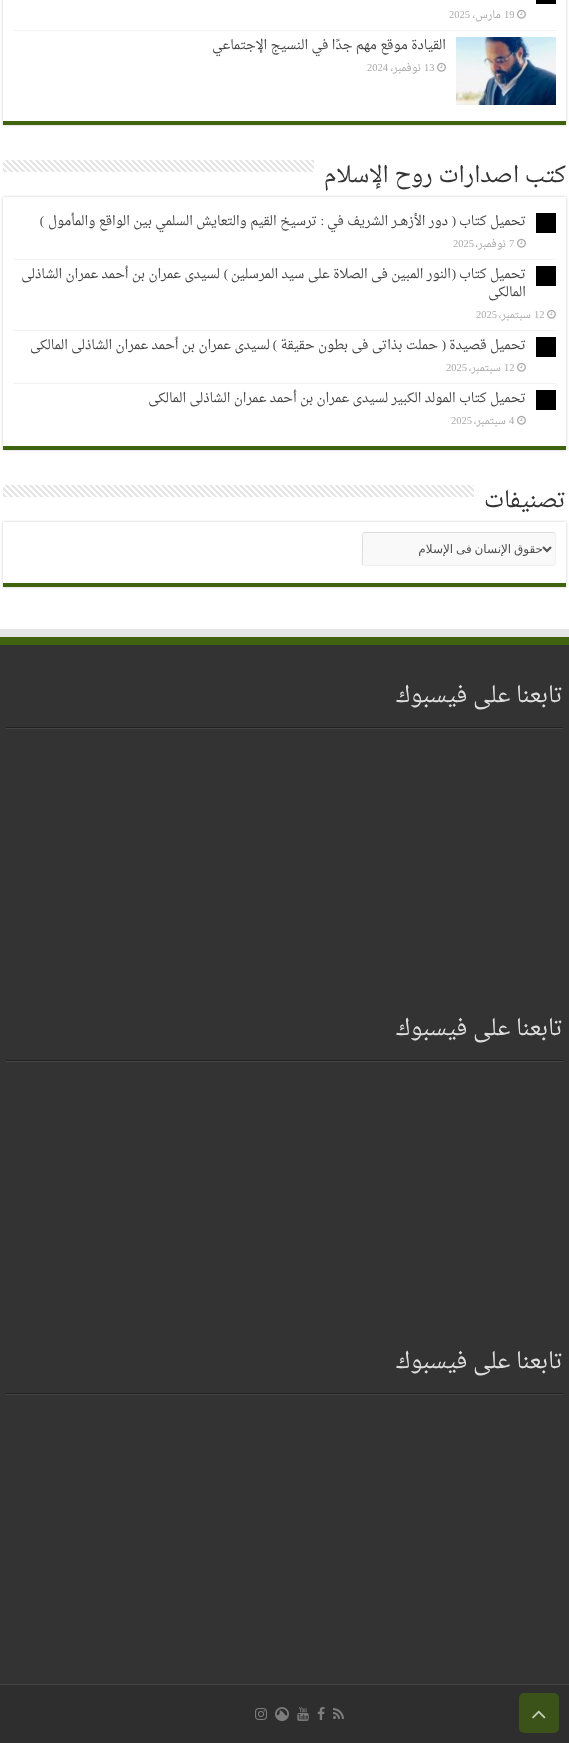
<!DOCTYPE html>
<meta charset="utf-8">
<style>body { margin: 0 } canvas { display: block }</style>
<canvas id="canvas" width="569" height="1743"></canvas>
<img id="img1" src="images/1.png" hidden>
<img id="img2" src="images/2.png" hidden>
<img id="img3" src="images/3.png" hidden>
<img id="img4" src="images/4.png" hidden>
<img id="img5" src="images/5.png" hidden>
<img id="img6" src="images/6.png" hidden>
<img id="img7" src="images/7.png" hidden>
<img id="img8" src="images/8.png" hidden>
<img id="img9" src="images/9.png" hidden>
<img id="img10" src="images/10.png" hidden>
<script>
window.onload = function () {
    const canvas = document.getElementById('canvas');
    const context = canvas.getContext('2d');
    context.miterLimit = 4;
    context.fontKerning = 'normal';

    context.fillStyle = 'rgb(255, 255, 255)';
    context.fillRect(0, 0, 569, 1743);
    context.save();
    context.beginPath();
    context.moveTo(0, 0);
    context.lineTo(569, 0);
    context.lineTo(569, 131);
    context.lineTo(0, 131);
    context.closePath();
    context.moveTo(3, -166);
    context.lineTo(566, -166);
    context.lineTo(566, 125);
    context.lineTo(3, 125);
    context.closePath();
    context.clip('evenodd');
    context.fillStyle = 'rgb(202, 202, 202)';
    context.filter = 'blur(1.5px)';
    context.beginPath();
    context.rect(3, -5, 563, 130);
    context.fill();
    context.filter = 'none';
    context.restore();
    context.fillStyle = 'rgb(64, 99, 16)';
    context.fillRect(3, 121, 563, 4);
    context.fillStyle = 'rgb(242, 242, 242)';
    context.fillRect(13, 30, 543, 1);
    context.fillStyle = 'rgb(0, 0, 0)';
    context.fillRect(536, 0, 20, 4);
    context.drawImage(document.getElementById('img1'), 517, 9, 9, 10);
    context.drawImage(document.getElementById('img2'), 456, 37, 100, 68);
    context.drawImage(document.getElementById('img1'), 437, 62, 9, 10);
    context.drawImage(document.getElementById('img3'), 3, 160, 311, 12);
    context.save();
    context.beginPath();
    context.moveTo(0, 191);
    context.lineTo(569, 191);
    context.lineTo(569, 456);
    context.lineTo(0, 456);
    context.closePath();
    context.moveTo(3, 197);
    context.lineTo(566, 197);
    context.lineTo(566, 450);
    context.lineTo(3, 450);
    context.closePath();
    context.clip('evenodd');
    context.fillStyle = 'rgb(202, 202, 202)';
    context.filter = 'blur(1.5px)';
    context.beginPath();
    context.rect(3, 197, 563, 253);
    context.fill();
    context.filter = 'none';
    context.restore();
    context.fillStyle = 'rgb(64, 99, 16)';
    context.fillRect(3, 446, 563, 4);
    context.fillStyle = 'rgb(242, 242, 242)';
    context.fillRect(13, 259, 543, 1);
    context.fillStyle = 'rgb(0, 0, 0)';
    context.fillRect(536, 213, 20, 20);
    context.drawImage(document.getElementById('img1'), 517, 238, 9, 10);
    context.fillStyle = 'rgb(242, 242, 242)';
    context.fillRect(13, 330, 543, 1);
    context.fillStyle = 'rgb(0, 0, 0)';
    context.fillRect(536, 266, 20, 20);
    context.drawImage(document.getElementById('img1'), 547, 309, 9, 10);
    context.fillStyle = 'rgb(242, 242, 242)';
    context.fillRect(13, 383, 543, 1);
    context.fillStyle = 'rgb(0, 0, 0)';
    context.fillRect(536, 337, 20, 20);
    context.drawImage(document.getElementById('img1'), 517, 362, 9, 10);
    context.fillRect(536, 390, 20, 20);
    context.drawImage(document.getElementById('img1'), 517, 415, 9, 10);
    context.drawImage(document.getElementById('img4'), 3, 485, 471, 12);
    context.save();
    context.beginPath();
    context.moveTo(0, 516);
    context.lineTo(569, 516);
    context.lineTo(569, 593);
    context.lineTo(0, 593);
    context.closePath();
    context.moveTo(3, 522);
    context.lineTo(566, 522);
    context.lineTo(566, 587);
    context.lineTo(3, 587);
    context.closePath();
    context.clip('evenodd');
    context.fillStyle = 'rgb(202, 202, 202)';
    context.filter = 'blur(1.5px)';
    context.beginPath();
    context.rect(3, 522, 563, 65);
    context.fill();
    context.filter = 'none';
    context.restore();
    context.fillStyle = 'rgb(64, 99, 16)';
    context.fillRect(3, 583, 563, 4);
    context.fillStyle = 'rgb(249, 249, 249)';
    context.beginPath();
    context.roundRect(362, 532, 194, 34, 3);
    context.fill();
    context.beginPath();
    context.moveTo(555, 533);
    context.bezierCurveTo(556.5, 535, 555.5, 542, 555.5, 544.5);
    context.lineTo(555.5, 558.5);
    context.bezierCurveTo(555.5, 560, 556.5, 565.5, 553, 565.5);
    context.lineTo(364.5, 565.5);
    context.lineTo(363, 565);
    context.strokeStyle = 'rgb(241, 241, 241)';
    context.stroke();
    context.beginPath();
    context.moveTo(363, 565);
    context.bezierCurveTo(361.5, 563, 362.5, 556, 362.5, 553.5);
    context.lineTo(362.5, 539.5);
    context.bezierCurveTo(362.5, 538, 361.5, 532.5, 365, 532.5);
    context.lineTo(553.5, 532.5);
    context.lineTo(555, 533);
    context.strokeStyle = 'rgb(221, 221, 221)';
    context.stroke();
    context.beginPath();
    context.moveTo(543, 547);
    context.lineTo(547, 551);
    context.lineTo(551, 547);
    context.strokeStyle = 'rgb(81, 81, 81)';
    context.lineWidth = 2;
    context.stroke();
    context.fillStyle = 'rgb(230, 230, 230)';
    context.fillRect(0, 629, 569, 8);
    context.fillStyle = 'rgb(51, 51, 51)';
    context.fillRect(0, 645, 569, 1039);
    context.fillStyle = 'rgb(64, 99, 16)';
    context.fillRect(0, 637, 569, 8);
    context.fillStyle = 'rgb(34, 34, 34)';
    context.fillRect(6, 727, 557, 1);
    context.fillStyle = 'rgb(68, 68, 68)';
    context.fillRect(6, 728, 557, 1);
    context.fillStyle = 'rgb(34, 34, 34)';
    context.fillRect(6, 1060, 557, 1);
    context.fillStyle = 'rgb(68, 68, 68)';
    context.fillRect(6, 1061, 557, 1);
    context.fillStyle = 'rgb(34, 34, 34)';
    context.fillRect(6, 1393, 557, 1);
    context.fillStyle = 'rgb(68, 68, 68)';
    context.fillRect(6, 1394, 557, 1);
    context.fillStyle = 'rgb(46, 46, 46)';
    context.fillRect(0, 1685, 569, 58);
    context.fillStyle = 'rgb(68, 68, 68)';
    context.fillRect(0, 1684, 569, 1);
    context.drawImage(document.getElementById('img5'), 333, 1708, 11, 11);
    context.drawImage(document.getElementById('img6'), 317, 1707, 8, 13);
    context.drawImage(document.getElementById('img7'), 297, 1707, 12, 14);
    context.drawImage(document.getElementById('img8'), 275, 1707, 14, 14);
    context.drawImage(document.getElementById('img9'), 255, 1708, 12, 12);
    context.fillStyle = 'rgb(59, 83, 25)';
    context.beginPath();
    context.roundRect(519, 1693, 40, 40, 5);
    context.fill();
    context.drawImage(document.getElementById('img10'), 532, 1710, 14, 9);
    context.font = '10.5px Liberation Serif';
    context.fillStyle = 'rgb(170, 170, 170)';
    context.fillText('19', 504, 18);
    context.direction = 'rtl';
    context.font = '10.5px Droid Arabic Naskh';
    context.fillText('مارس،', 501, 18);
    context.direction = 'ltr';
    context.font = '10.5px Liberation Serif';
    context.fillText('2025', 449, 18);
    context.direction = 'rtl';
    context.font = '13px Droid Arabic Naskh';
    context.fillStyle = 'rgb(68, 68, 68)';
    context.fillText('القيادة موقع مهم جدًا في النسيج الإجتماعي', 446, 49);
    context.direction = 'ltr';
    context.font = '10.5px Liberation Serif';
    context.fillStyle = 'rgb(170, 170, 170)';
    context.fillText('13', 424, 71);
    context.direction = 'rtl';
    context.font = '10.5px Droid Arabic Naskh';
    context.fillText('نوفمبر،', 421, 71);
    context.direction = 'ltr';
    context.font = '10.5px Liberation Serif';
    context.fillText('2024', 367, 71);
    context.direction = 'rtl';
    context.font = '22px Droid Arabic Naskh';
    context.fillStyle = 'rgb(51, 51, 51)';
    context.fillText('كتب اصدارات روح الإسلام', 566, 182);
    context.font = '13px Droid Arabic Naskh';
    context.fillStyle = 'rgb(68, 68, 68)';
    context.fillText('تحميل كتاب', 526, 225);
    context.font = '13px Liberation Serif';
    context.fillText('(', 456, 225);
    context.font = '13px Droid Arabic Naskh';
    context.fillText('دور الأزهــر الشريف في', 448, 225);
    context.font = '13px Liberation Serif';
    context.fillText(':', 324, 225);
    context.font = '13px Droid Arabic Naskh';
    context.fillText('ترسيخ القيم والتعايش السلمي بين الواقع والمأمول', 317, 225);
    context.font = '13px Liberation Serif';
    context.fillText(')', 44, 225);
    context.direction = 'ltr';
    context.font = '10.5px Liberation Serif';
    context.fillStyle = 'rgb(170, 170, 170)';
    context.fillText('7', 509, 247);
    context.direction = 'rtl';
    context.font = '10.5px Droid Arabic Naskh';
    context.fillText('نوفمبر،', 506, 247);
    context.direction = 'ltr';
    context.font = '10.5px Liberation Serif';
    context.fillText('2025', 453, 247);
    context.direction = 'rtl';
    context.font = '13px Droid Arabic Naskh';
    context.fillStyle = 'rgb(68, 68, 68)';
    context.fillText('تحميل كتاب', 526, 278);
    context.font = '13px Liberation Serif';
    context.fillText('(', 456, 278);
    context.font = '13px Droid Arabic Naskh';
    context.fillText('النور المبين فى الصلاة على سيد المرسلين', 451, 278);
    context.font = '13px Liberation Serif';
    context.fillText(')', 228, 278);
    context.font = '13px Droid Arabic Naskh';
    context.fillText('لسيدى عمران بن أحمد عمران الشاذلى', 220, 278);
    context.fillText('المالكى', 526, 296);
    context.direction = 'ltr';
    context.font = '10.5px Liberation Serif';
    context.fillStyle = 'rgb(170, 170, 170)';
    context.fillText('12', 534, 318);
    context.direction = 'rtl';
    context.font = '10.5px Droid Arabic Naskh';
    context.fillText('سبتمبر،', 531, 318);
    context.direction = 'ltr';
    context.font = '10.5px Liberation Serif';
    context.fillText('2025', 476, 318);
    context.direction = 'rtl';
    context.font = '13px Droid Arabic Naskh';
    context.fillStyle = 'rgb(68, 68, 68)';
    context.fillText('تحميل قصيدة', 526, 349);
    context.font = '13px Liberation Serif';
    context.fillText('(', 446, 349);
    context.font = '13px Droid Arabic Naskh';
    context.fillText('حملت بذاتى فى بطون حقيقة', 438, 349);
    context.font = '13px Liberation Serif';
    context.fillText(')', 277, 349);
    context.font = '13px Droid Arabic Naskh';
    context.fillText('لسيدى عمران بن أحمد عمران الشاذلى المالكى', 270, 349);
    context.direction = 'ltr';
    context.font = '10.5px Liberation Serif';
    context.fillStyle = 'rgb(170, 170, 170)';
    context.fillText('12', 504, 371);
    context.direction = 'rtl';
    context.font = '10.5px Droid Arabic Naskh';
    context.fillText('سبتمبر،', 501, 371);
    context.direction = 'ltr';
    context.font = '10.5px Liberation Serif';
    context.fillText('2025', 446, 371);
    context.direction = 'rtl';
    context.font = '13px Droid Arabic Naskh';
    context.fillStyle = 'rgb(68, 68, 68)';
    context.fillText('تحميل كتاب المولد الكبير لسيدى عمران بن أحمد عمران الشاذلى المالكى', 526, 402);
    context.direction = 'ltr';
    context.font = '10.5px Liberation Serif';
    context.fillStyle = 'rgb(170, 170, 170)';
    context.fillText('4', 509, 424);
    context.direction = 'rtl';
    context.font = '10.5px Droid Arabic Naskh';
    context.fillText('سبتمبر،', 506, 424);
    context.direction = 'ltr';
    context.font = '10.5px Liberation Serif';
    context.fillText('2025', 451, 424);
    context.direction = 'rtl';
    context.font = '22px Droid Arabic Naskh';
    context.fillStyle = 'rgb(51, 51, 51)';
    context.fillText('تصنيفات', 566, 507);
    context.save();
    context.beginPath();
    context.rect(387, 541, 156, 16);
    context.clip();
    context.wordSpacing = '-1px';
    context.font = '12px DejaVu Sans';
    context.fillStyle = 'rgb(81, 81, 81)';
    context.fillText('حقوق الإنسان فى الإسلام', 543, 553);
    context.restore();
    context.fillStyle = 'rgb(221, 221, 221)';
    context.fillText('تابعنا على فيسبوك', 563, 702);
    context.fillText('تابعنا على فيسبوك', 563, 1035);
    context.fillText('تابعنا على فيسبوك', 563, 1368);
};
</script>
